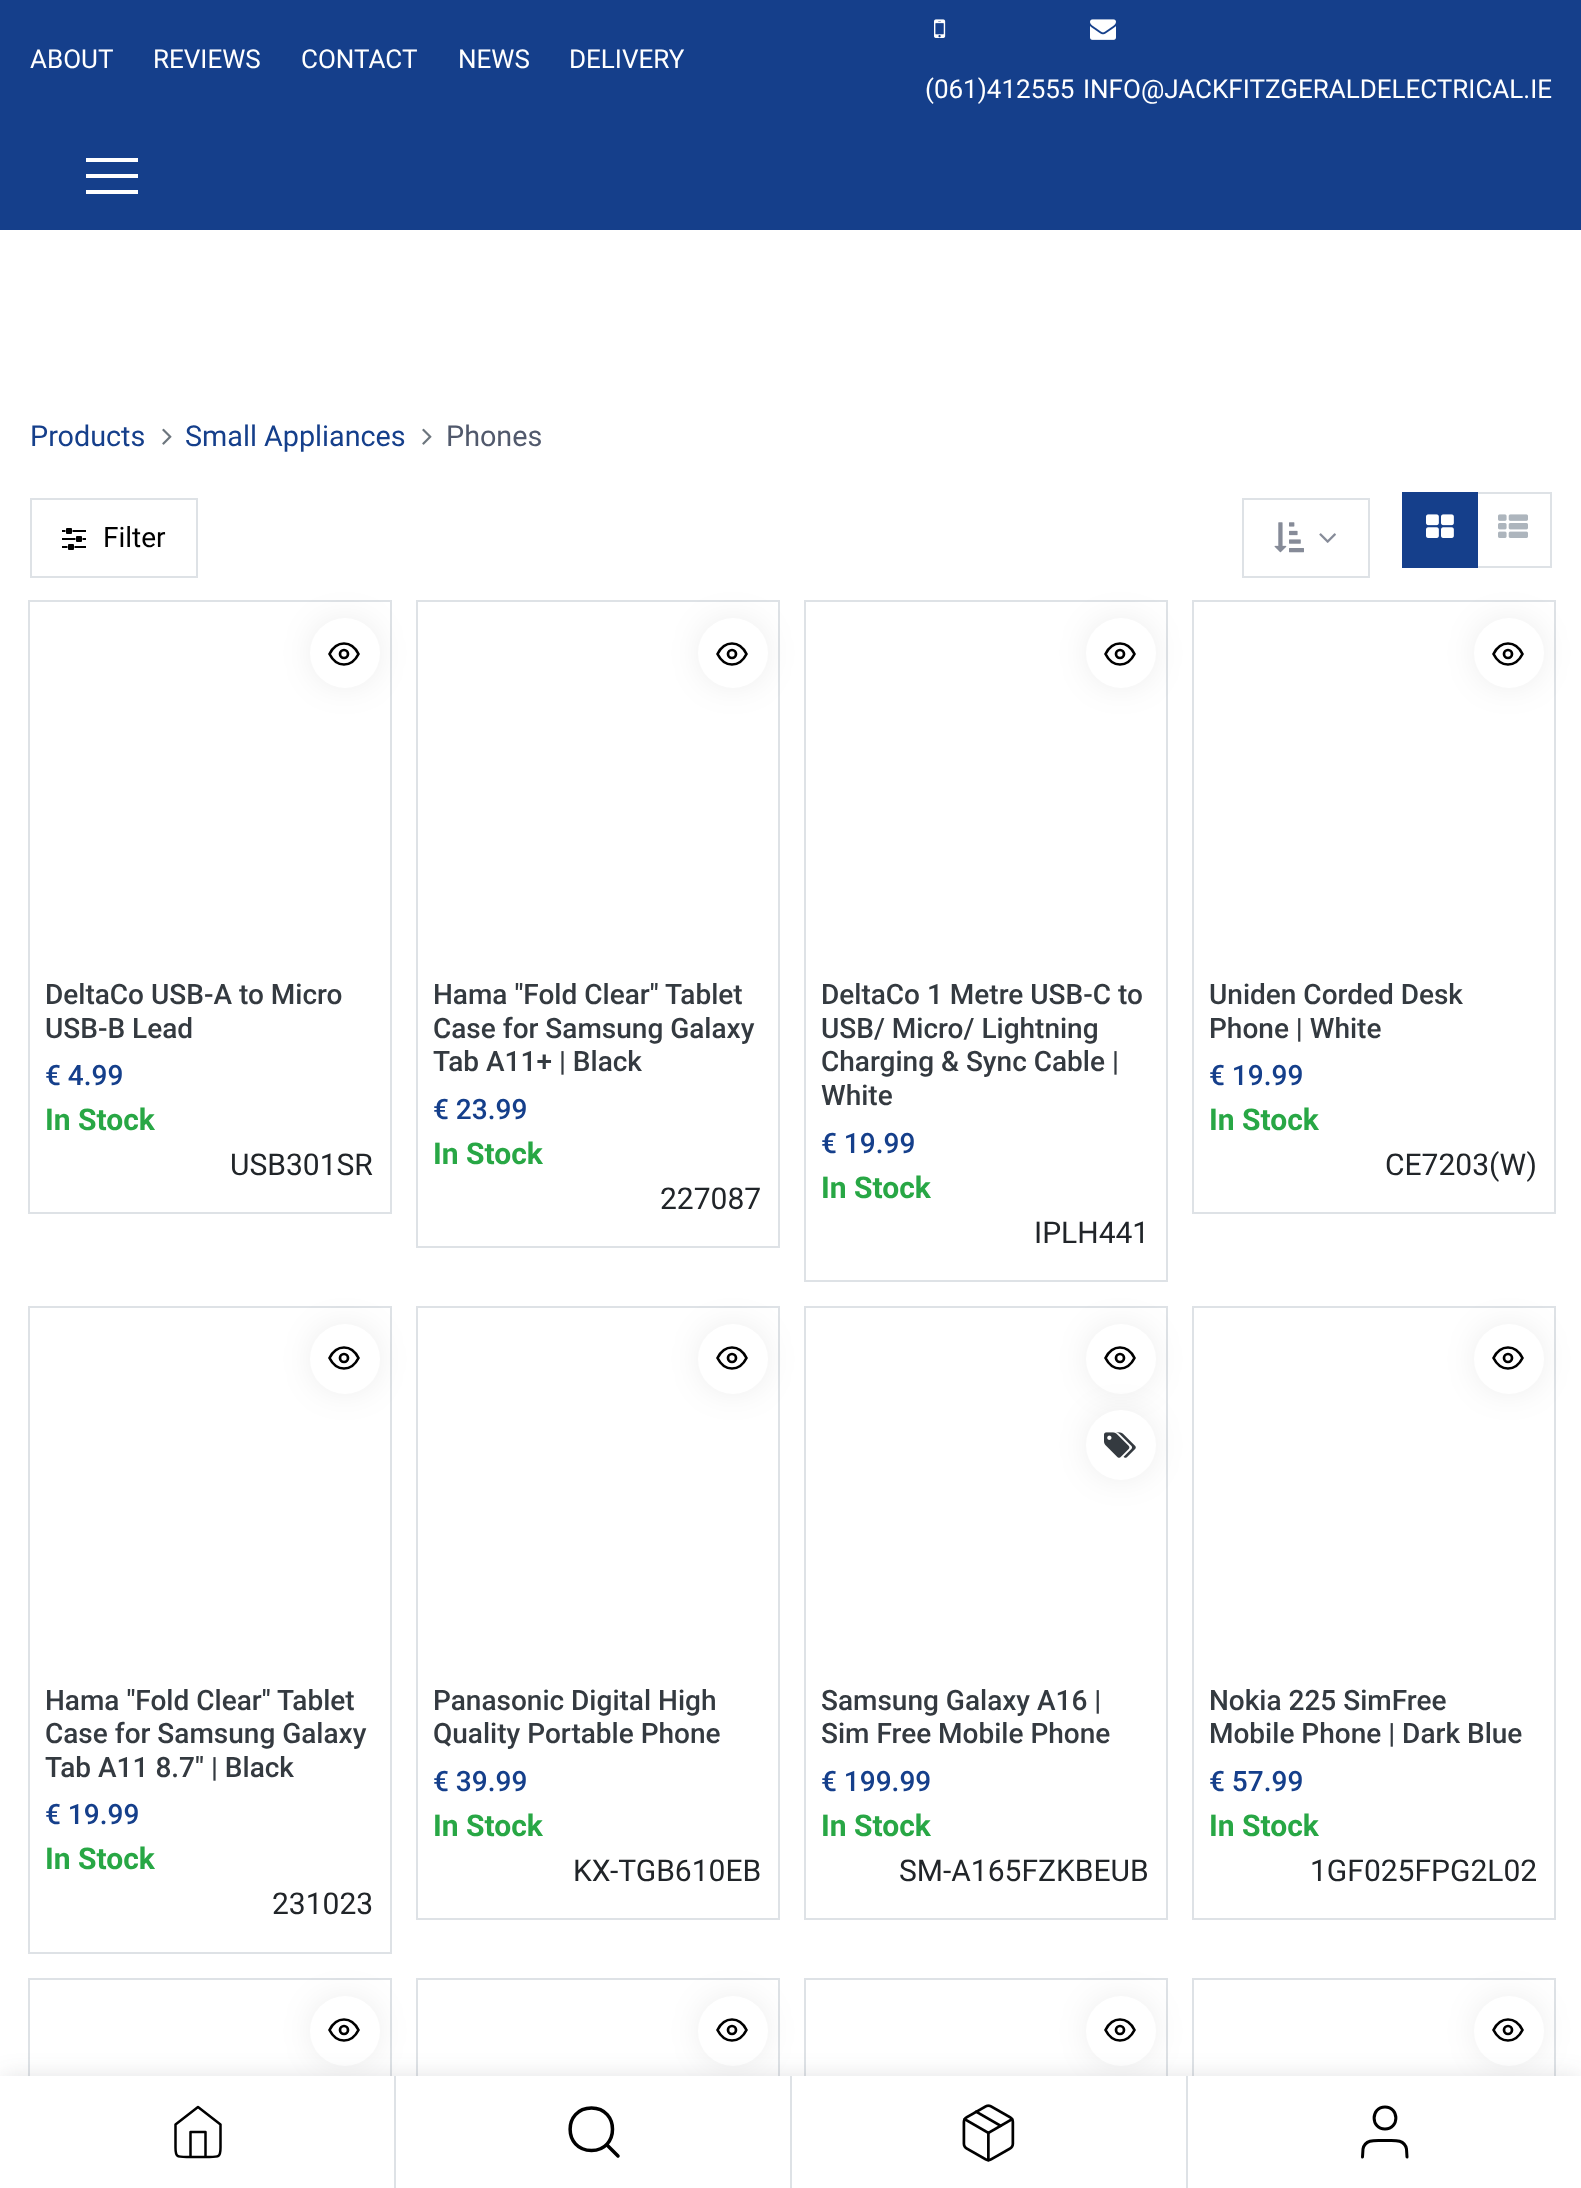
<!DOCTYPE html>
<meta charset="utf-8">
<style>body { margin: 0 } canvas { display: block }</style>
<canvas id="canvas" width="1581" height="2188"></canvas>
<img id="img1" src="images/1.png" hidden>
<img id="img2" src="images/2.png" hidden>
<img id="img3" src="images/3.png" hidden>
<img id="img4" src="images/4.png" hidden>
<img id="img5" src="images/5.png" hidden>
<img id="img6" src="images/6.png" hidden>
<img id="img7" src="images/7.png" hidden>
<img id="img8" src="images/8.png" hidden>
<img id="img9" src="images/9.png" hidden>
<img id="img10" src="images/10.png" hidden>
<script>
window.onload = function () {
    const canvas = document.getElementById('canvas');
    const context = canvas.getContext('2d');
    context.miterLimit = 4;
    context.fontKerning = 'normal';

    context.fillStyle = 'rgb(255, 255, 255)';
    context.fillRect(0, 0, 1581, 2188);
    context.fillStyle = 'rgb(21, 63, 139)';
    context.fillRect(0, 0, 1581, 230);
    context.drawImage(document.getElementById('img1'), 934, 19, 12, 19);
    context.drawImage(document.getElementById('img2'), 1090, 19, 26, 21);
    context.fillStyle = 'rgb(255, 255, 255)';
    context.fillRect(86, 190, 52, 4);
    context.fillRect(86, 158, 52, 4);
    context.fillRect(86, 174, 52, 4);
    context.drawImage(document.getElementById('img3'), 162, 428, 10, 17);
    context.drawImage(document.getElementById('img3'), 422, 428, 10, 17);
    context.strokeStyle = 'rgb(222, 226, 230)';
    context.lineWidth = 2;
    context.strokeRect(31, 499, 166, 78);
    context.drawImage(document.getElementById('img4'), 62, 528, 24, 22);
    context.fillStyle = 'rgb(222, 226, 230)';
    context.fillRect(1242, 498, 128, 2);
    context.fillRect(1368, 498, 2, 80);
    context.fillRect(1242, 576, 128, 2);
    context.fillRect(1242, 500, 2, 76);
    context.drawImage(document.getElementById('img5'), 1274, 522, 30, 31);
    context.drawImage(document.getElementById('img6'), 1319, 533, 17, 10);
    context.strokeRect(1477, 493, 74, 74);
    context.fillStyle = 'rgb(21, 63, 139)';
    context.fillRect(1402, 492, 76, 76);
    context.drawImage(document.getElementById('img7'), 1426, 514, 28, 24);
    context.drawImage(document.getElementById('img8'), 1498, 514, 30, 24);
    context.strokeRect(29, 601, 362, 612);
    context.strokeRect(417, 601, 362, 646);
    context.fillStyle = 'rgba(0, 0, 0, 0.13)';
    context.filter = 'blur(19px)';
    context.beginPath();
    context.roundRect(318, 626, 54, 54, 27);
    context.fill();
    context.filter = 'none';
    context.fillStyle = 'rgb(255, 255, 255)';
    context.beginPath();
    context.arc(345, 653, 35, 0, 2 * Math.PI);
    context.fill();
    context.beginPath();
    context.moveTo(329.5, 654);
    context.bezierCurveTo(336.5, 640, 351.5, 640, 358.5, 654);
    context.bezierCurveTo(351.5, 668, 336.5, 668, 329.5, 654);
    context.closePath();
    context.strokeStyle = 'rgb(0, 0, 0)';
    context.lineWidth = 2.7;
    context.lineCap = 'round';
    context.lineJoin = 'round';
    context.stroke();
    context.beginPath();
    context.arc(344, 654, 4, 0, 2 * Math.PI);
    context.stroke();
    context.strokeStyle = 'rgb(222, 226, 230)';
    context.lineWidth = 2;
    context.lineJoin = 'miter';
    context.strokeRect(805, 601, 362, 680);
    context.fillStyle = 'rgba(0, 0, 0, 0.13)';
    context.filter = 'blur(19px)';
    context.beginPath();
    context.roundRect(706, 626, 54, 54, 27);
    context.fill();
    context.filter = 'none';
    context.fillStyle = 'rgb(255, 255, 255)';
    context.beginPath();
    context.arc(733, 653, 35, 0, 2 * Math.PI);
    context.fill();
    context.beginPath();
    context.moveTo(717.5, 654);
    context.bezierCurveTo(724.5, 640, 739.5, 640, 746.5, 654);
    context.bezierCurveTo(739.5, 668, 724.5, 668, 717.5, 654);
    context.closePath();
    context.strokeStyle = 'rgb(0, 0, 0)';
    context.lineWidth = 2.7;
    context.lineJoin = 'round';
    context.stroke();
    context.beginPath();
    context.arc(732, 654, 4, 0, 2 * Math.PI);
    context.stroke();
    context.strokeStyle = 'rgb(222, 226, 230)';
    context.lineWidth = 2;
    context.lineJoin = 'miter';
    context.strokeRect(1193, 601, 362, 612);
    context.fillStyle = 'rgba(0, 0, 0, 0.13)';
    context.filter = 'blur(19px)';
    context.beginPath();
    context.roundRect(1094, 626, 54, 54, 27);
    context.fill();
    context.filter = 'none';
    context.fillStyle = 'rgb(255, 255, 255)';
    context.beginPath();
    context.arc(1121, 653, 35, 0, 2 * Math.PI);
    context.fill();
    context.beginPath();
    context.moveTo(1105.5, 654);
    context.bezierCurveTo(1112.5, 640, 1127.5, 640, 1134.5, 654);
    context.bezierCurveTo(1127.5, 668, 1112.5, 668, 1105.5, 654);
    context.closePath();
    context.strokeStyle = 'rgb(0, 0, 0)';
    context.lineWidth = 2.7;
    context.lineJoin = 'round';
    context.stroke();
    context.beginPath();
    context.arc(1120, 654, 4, 0, 2 * Math.PI);
    context.stroke();
    context.fillStyle = 'rgba(0, 0, 0, 0.13)';
    context.filter = 'blur(19px)';
    context.beginPath();
    context.roundRect(1482, 626, 54, 54, 27);
    context.fill();
    context.filter = 'none';
    context.fillStyle = 'rgb(255, 255, 255)';
    context.beginPath();
    context.arc(1509, 653, 35, 0, 2 * Math.PI);
    context.fill();
    context.beginPath();
    context.moveTo(1493.5, 654);
    context.bezierCurveTo(1500.5, 640, 1515.5, 640, 1522.5, 654);
    context.bezierCurveTo(1515.5, 668, 1500.5, 668, 1493.5, 654);
    context.closePath();
    context.stroke();
    context.beginPath();
    context.arc(1508, 654, 4, 0, 2 * Math.PI);
    context.stroke();
    context.strokeStyle = 'rgb(222, 226, 230)';
    context.lineWidth = 2;
    context.lineJoin = 'miter';
    context.strokeRect(29, 1307, 362, 646);
    context.strokeRect(417, 1307, 362, 612);
    context.fillStyle = 'rgba(0, 0, 0, 0.13)';
    context.filter = 'blur(19px)';
    context.beginPath();
    context.roundRect(318, 1332, 54, 54, 27);
    context.fill();
    context.filter = 'none';
    context.fillStyle = 'rgb(255, 255, 255)';
    context.beginPath();
    context.arc(345, 1359, 35, 0, 2 * Math.PI);
    context.fill();
    context.beginPath();
    context.moveTo(329.5, 1358);
    context.bezierCurveTo(336.5, 1344, 351.5, 1344, 358.5, 1358);
    context.bezierCurveTo(351.5, 1372, 336.5, 1372, 329.5, 1358);
    context.closePath();
    context.strokeStyle = 'rgb(0, 0, 0)';
    context.lineWidth = 2.7;
    context.lineJoin = 'round';
    context.stroke();
    context.beginPath();
    context.arc(344, 1358, 4, 0, 2 * Math.PI);
    context.stroke();
    context.strokeStyle = 'rgb(222, 226, 230)';
    context.lineWidth = 2;
    context.lineJoin = 'miter';
    context.strokeRect(805, 1307, 362, 612);
    context.fillStyle = 'rgba(0, 0, 0, 0.13)';
    context.filter = 'blur(19px)';
    context.beginPath();
    context.roundRect(706, 1332, 54, 54, 27);
    context.fill();
    context.filter = 'none';
    context.fillStyle = 'rgb(255, 255, 255)';
    context.beginPath();
    context.arc(733, 1359, 35, 0, 2 * Math.PI);
    context.fill();
    context.beginPath();
    context.moveTo(717.5, 1358);
    context.bezierCurveTo(724.5, 1344, 739.5, 1344, 746.5, 1358);
    context.bezierCurveTo(739.5, 1372, 724.5, 1372, 717.5, 1358);
    context.closePath();
    context.strokeStyle = 'rgb(0, 0, 0)';
    context.lineWidth = 2.7;
    context.lineJoin = 'round';
    context.stroke();
    context.beginPath();
    context.arc(732, 1358, 4, 0, 2 * Math.PI);
    context.stroke();
    context.strokeStyle = 'rgb(222, 226, 230)';
    context.lineWidth = 2;
    context.lineJoin = 'miter';
    context.strokeRect(1193, 1307, 362, 612);
    context.fillStyle = 'rgba(0, 0, 0, 0.13)';
    context.filter = 'blur(19px)';
    context.beginPath();
    context.roundRect(1094, 1332, 54, 54, 27);
    context.fill();
    context.filter = 'none';
    context.fillStyle = 'rgb(255, 255, 255)';
    context.beginPath();
    context.arc(1121, 1359, 35, 0, 2 * Math.PI);
    context.fill();
    context.beginPath();
    context.moveTo(1105.5, 1358);
    context.bezierCurveTo(1112.5, 1344, 1127.5, 1344, 1134.5, 1358);
    context.bezierCurveTo(1127.5, 1372, 1112.5, 1372, 1105.5, 1358);
    context.closePath();
    context.strokeStyle = 'rgb(0, 0, 0)';
    context.lineWidth = 2.7;
    context.lineJoin = 'round';
    context.stroke();
    context.beginPath();
    context.arc(1120, 1358, 4, 0, 2 * Math.PI);
    context.stroke();
    context.fillStyle = 'rgba(0, 0, 0, 0.13)';
    context.filter = 'blur(19px)';
    context.beginPath();
    context.roundRect(1094, 1418, 54, 54, 27);
    context.fill();
    context.filter = 'none';
    context.fillStyle = 'rgb(255, 255, 255)';
    context.beginPath();
    context.arc(1121, 1445, 35, 0, 2 * Math.PI);
    context.fill();
    context.drawImage(document.getElementById('img9'), 1104, 1432, 32, 26);
    context.fillStyle = 'rgba(0, 0, 0, 0.13)';
    context.filter = 'blur(19px)';
    context.beginPath();
    context.roundRect(1482, 1332, 54, 54, 27);
    context.fill();
    context.filter = 'none';
    context.fillStyle = 'rgb(255, 255, 255)';
    context.beginPath();
    context.arc(1509, 1359, 35, 0, 2 * Math.PI);
    context.fill();
    context.beginPath();
    context.moveTo(1493.5, 1358);
    context.bezierCurveTo(1500.5, 1344, 1515.5, 1344, 1522.5, 1358);
    context.bezierCurveTo(1515.5, 1372, 1500.5, 1372, 1493.5, 1358);
    context.closePath();
    context.stroke();
    context.beginPath();
    context.arc(1508, 1358, 4, 0, 2 * Math.PI);
    context.stroke();
    context.strokeStyle = 'rgb(222, 226, 230)';
    context.lineWidth = 2;
    context.lineJoin = 'miter';
    context.strokeRect(29, 1979, 362, 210);
    context.strokeRect(417, 1979, 362, 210);
    context.fillStyle = 'rgba(0, 0, 0, 0.13)';
    context.filter = 'blur(19px)';
    context.beginPath();
    context.roundRect(318, 2004, 54, 54, 27);
    context.fill();
    context.filter = 'none';
    context.fillStyle = 'rgb(255, 255, 255)';
    context.beginPath();
    context.arc(345, 2031, 35, 0, 2 * Math.PI);
    context.fill();
    context.beginPath();
    context.moveTo(329.5, 2030);
    context.bezierCurveTo(336.5, 2016, 351.5, 2016, 358.5, 2030);
    context.bezierCurveTo(351.5, 2044, 336.5, 2044, 329.5, 2030);
    context.closePath();
    context.strokeStyle = 'rgb(0, 0, 0)';
    context.lineWidth = 2.7;
    context.lineJoin = 'round';
    context.stroke();
    context.beginPath();
    context.arc(344, 2030, 4, 0, 2 * Math.PI);
    context.stroke();
    context.strokeStyle = 'rgb(222, 226, 230)';
    context.lineWidth = 2;
    context.lineJoin = 'miter';
    context.strokeRect(805, 1979, 362, 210);
    context.fillStyle = 'rgba(0, 0, 0, 0.13)';
    context.filter = 'blur(19px)';
    context.beginPath();
    context.roundRect(706, 2004, 54, 54, 27);
    context.fill();
    context.filter = 'none';
    context.fillStyle = 'rgb(255, 255, 255)';
    context.beginPath();
    context.arc(733, 2031, 35, 0, 2 * Math.PI);
    context.fill();
    context.beginPath();
    context.moveTo(717.5, 2030);
    context.bezierCurveTo(724.5, 2016, 739.5, 2016, 746.5, 2030);
    context.bezierCurveTo(739.5, 2044, 724.5, 2044, 717.5, 2030);
    context.closePath();
    context.strokeStyle = 'rgb(0, 0, 0)';
    context.lineWidth = 2.7;
    context.lineJoin = 'round';
    context.stroke();
    context.beginPath();
    context.arc(732, 2030, 4, 0, 2 * Math.PI);
    context.stroke();
    context.strokeStyle = 'rgb(222, 226, 230)';
    context.lineWidth = 2;
    context.lineJoin = 'miter';
    context.strokeRect(1193, 1979, 362, 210);
    context.fillStyle = 'rgba(0, 0, 0, 0.13)';
    context.filter = 'blur(19px)';
    context.beginPath();
    context.roundRect(1094, 2004, 54, 54, 27);
    context.fill();
    context.filter = 'none';
    context.fillStyle = 'rgb(255, 255, 255)';
    context.beginPath();
    context.arc(1121, 2031, 35, 0, 2 * Math.PI);
    context.fill();
    context.beginPath();
    context.moveTo(1105.5, 2030);
    context.bezierCurveTo(1112.5, 2016, 1127.5, 2016, 1134.5, 2030);
    context.bezierCurveTo(1127.5, 2044, 1112.5, 2044, 1105.5, 2030);
    context.closePath();
    context.strokeStyle = 'rgb(0, 0, 0)';
    context.lineWidth = 2.7;
    context.lineJoin = 'round';
    context.stroke();
    context.beginPath();
    context.arc(1120, 2030, 4, 0, 2 * Math.PI);
    context.stroke();
    context.fillStyle = 'rgba(0, 0, 0, 0.13)';
    context.filter = 'blur(19px)';
    context.beginPath();
    context.roundRect(1482, 2004, 54, 54, 27);
    context.fill();
    context.filter = 'none';
    context.fillStyle = 'rgb(255, 255, 255)';
    context.beginPath();
    context.arc(1509, 2031, 35, 0, 2 * Math.PI);
    context.fill();
    context.beginPath();
    context.moveTo(1493.5, 2030);
    context.bezierCurveTo(1500.5, 2016, 1515.5, 2016, 1522.5, 2030);
    context.bezierCurveTo(1515.5, 2044, 1500.5, 2044, 1493.5, 2030);
    context.closePath();
    context.stroke();
    context.beginPath();
    context.arc(1508, 2030, 4, 0, 2 * Math.PI);
    context.stroke();
    context.fillStyle = 'rgba(52, 58, 64, 0.16)';
    context.filter = 'blur(12px)';
    context.beginPath();
    context.rect(2, 2078, 1578, 108);
    context.fill();
    context.filter = 'none';
    context.fillStyle = 'rgb(255, 255, 255)';
    context.fillRect(0, 2076, 1581, 112);
    context.beginPath();
    context.moveTo(175.5, 2124.5);
    context.lineTo(198, 2107);
    context.lineTo(220.5, 2124.5);
    context.lineTo(220.5, 2147.5);
    context.bezierCurveTo(220.5, 2157, 219, 2157, 209.5, 2157);
    context.lineTo(186.5, 2157);
    context.bezierCurveTo(177, 2157, 175.5, 2157, 175.5, 2147.5);
    context.closePath();
    context.moveTo(190.5, 2157);
    context.lineTo(190.5, 2132);
    context.lineTo(205.5, 2132);
    context.lineTo(205.5, 2157);
    context.lineWidth = 2.5;
    context.stroke();
    context.fillStyle = 'rgb(222, 226, 230)';
    context.fillRect(394, 2076, 2, 112);
    context.beginPath();
    context.moveTo(591.5, 2150.5);
    context.bezierCurveTo(619.5, 2150.5, 619.5, 2108, 591.5, 2108);
    context.bezierCurveTo(563, 2108, 563, 2150.5, 591.5, 2150.5);
    context.closePath();
    context.moveTo(618, 2156);
    context.lineTo(606.5, 2144.5);
    context.lineWidth = 3.5;
    context.stroke();
    context.fillRect(790, 2076, 2, 112);
    context.drawImage(document.getElementById('img10'), 962, 2104, 53, 58);
    context.fillRect(1186, 2076, 2, 112);
    context.beginPath();
    context.moveTo(1407, 2157);
    context.lineTo(1406.5, 2149);
    context.bezierCurveTo(1404.5, 2138.5, 1393, 2140.5, 1385, 2140.5);
    context.bezierCurveTo(1376.5, 2140.5, 1365, 2138.5, 1363, 2149);
    context.lineTo(1362.5, 2157);
    context.moveTo(1385, 2129);
    context.bezierCurveTo(1399.5, 2129, 1399.5, 2107, 1385, 2107);
    context.bezierCurveTo(1370.5, 2107, 1370.5, 2129, 1385, 2129);
    context.closePath();
    context.lineWidth = 3;
    context.stroke();
    context.font = '26px Roboto';
    context.fillStyle = 'rgb(255, 255, 255)';
    context.fillText('ABOUT', 30, 68);
    context.fillText('REVIEWS', 153, 68);
    context.fillText('CONTACT', 301, 68);
    context.fillText('NEWS', 458, 68);
    context.fillText('DELIVERY', 569, 68);
    context.fillText('(061)412555', 925, 98);
    context.fillText('INFO@JACKFITZGERALDELECTRICAL.IE', 1083, 98);
    context.font = '28.75px Roboto';
    context.fillStyle = 'rgb(21, 63, 139)';
    context.fillText('Products', 30, 446);
    context.fillText('Small Appliances', 185, 446);
    context.fillStyle = 'rgb(81, 89, 108)';
    context.fillText('Phones', 446, 446);
    context.font = '28px Roboto';
    context.fillStyle = 'rgb(0, 0, 0)';
    context.fillText('Filter', 103, 547);
    context.font = '500 28px Roboto';
    context.fillStyle = 'rgb(52, 58, 64)';
    context.fillText('DeltaCo USB-A to Micro', 45, 1004);
    context.fillText('USB-B Lead', 45, 1038);
    context.fillStyle = 'rgb(21, 63, 139)';
    context.fillText('€ 4.99', 45, 1085);
    context.font = 'bold 30px Roboto';
    context.fillStyle = 'rgb(40, 167, 69)';
    context.fillText('In Stock', 45, 1130);
    context.font = '30px Roboto';
    context.fillStyle = 'rgb(33, 37, 41)';
    context.fillText('USB301SR', 230, 1175);
    context.font = '500 28px Roboto';
    context.fillStyle = 'rgb(52, 58, 64)';
    context.fillText('Hama "Fold Clear" Tablet', 433, 1004);
    context.fillText('Case for Samsung Galaxy', 433, 1038);
    context.fillText('Tab A11+ | Black', 433, 1071);
    context.fillStyle = 'rgb(21, 63, 139)';
    context.fillText('€ 23.99', 433, 1119);
    context.font = 'bold 30px Roboto';
    context.fillStyle = 'rgb(40, 167, 69)';
    context.fillText('In Stock', 433, 1164);
    context.font = '30px Roboto';
    context.fillStyle = 'rgb(33, 37, 41)';
    context.fillText('227087', 660, 1209);
    context.font = '500 28px Roboto';
    context.fillStyle = 'rgb(52, 58, 64)';
    context.fillText('DeltaCo 1 Metre USB-C to', 821, 1004);
    context.fillText('USB/ Micro/ Lightning', 821, 1038);
    context.fillText('Charging & Sync Cable |', 821, 1071);
    context.fillText('White', 821, 1105);
    context.fillStyle = 'rgb(21, 63, 139)';
    context.fillText('€ 19.99', 821, 1153);
    context.font = 'bold 30px Roboto';
    context.fillStyle = 'rgb(40, 167, 69)';
    context.fillText('In Stock', 821, 1198);
    context.font = '30px Roboto';
    context.fillStyle = 'rgb(33, 37, 41)';
    context.fillText('IPLH441', 1034, 1243);
    context.font = '500 28px Roboto';
    context.fillStyle = 'rgb(52, 58, 64)';
    context.fillText('Uniden Corded Desk', 1209, 1004);
    context.fillText('Phone | White', 1209, 1038);
    context.fillStyle = 'rgb(21, 63, 139)';
    context.fillText('€ 19.99', 1209, 1085);
    context.font = 'bold 30px Roboto';
    context.fillStyle = 'rgb(40, 167, 69)';
    context.fillText('In Stock', 1209, 1130);
    context.font = '30px Roboto';
    context.fillStyle = 'rgb(33, 37, 41)';
    context.fillText('CE7203(W)', 1385, 1175);
    context.font = '500 28px Roboto';
    context.fillStyle = 'rgb(52, 58, 64)';
    context.fillText('Hama "Fold Clear" Tablet', 45, 1710);
    context.fillText('Case for Samsung Galaxy', 45, 1743);
    context.fillText('Tab A11 8.7" | Black', 45, 1777);
    context.fillStyle = 'rgb(21, 63, 139)';
    context.fillText('€ 19.99', 45, 1824);
    context.font = 'bold 30px Roboto';
    context.fillStyle = 'rgb(40, 167, 69)';
    context.fillText('In Stock', 45, 1869);
    context.font = '30px Roboto';
    context.fillStyle = 'rgb(33, 37, 41)';
    context.fillText('231023', 272, 1914);
    context.font = '500 28px Roboto';
    context.fillStyle = 'rgb(52, 58, 64)';
    context.fillText('Panasonic Digital High', 433, 1710);
    context.fillText('Quality Portable Phone', 433, 1743);
    context.fillStyle = 'rgb(21, 63, 139)';
    context.fillText('€ 39.99', 433, 1791);
    context.font = 'bold 30px Roboto';
    context.fillStyle = 'rgb(40, 167, 69)';
    context.fillText('In Stock', 433, 1836);
    context.font = '30px Roboto';
    context.fillStyle = 'rgb(33, 37, 41)';
    context.fillText('KX-TGB610EB', 573, 1881);
    context.font = '500 28px Roboto';
    context.fillStyle = 'rgb(52, 58, 64)';
    context.fillText('Samsung Galaxy A16 |', 821, 1710);
    context.fillText('Sim Free Mobile Phone', 821, 1743);
    context.fillStyle = 'rgb(21, 63, 139)';
    context.fillText('€ 199.99', 821, 1791);
    context.font = 'bold 30px Roboto';
    context.fillStyle = 'rgb(40, 167, 69)';
    context.fillText('In Stock', 821, 1836);
    context.font = '30px Roboto';
    context.fillStyle = 'rgb(33, 37, 41)';
    context.fillText('SM-A165FZKBEUB', 899, 1881);
    context.font = '500 28px Roboto';
    context.fillStyle = 'rgb(52, 58, 64)';
    context.fillText('Nokia 225 SimFree', 1209, 1710);
    context.fillText('Mobile Phone | Dark Blue', 1209, 1743);
    context.fillStyle = 'rgb(21, 63, 139)';
    context.fillText('€ 57.99', 1209, 1791);
    context.font = 'bold 30px Roboto';
    context.fillStyle = 'rgb(40, 167, 69)';
    context.fillText('In Stock', 1209, 1836);
    context.font = '30px Roboto';
    context.fillStyle = 'rgb(33, 37, 41)';
    context.fillText('1GF025FPG2L02', 1310, 1881);
};
</script>
